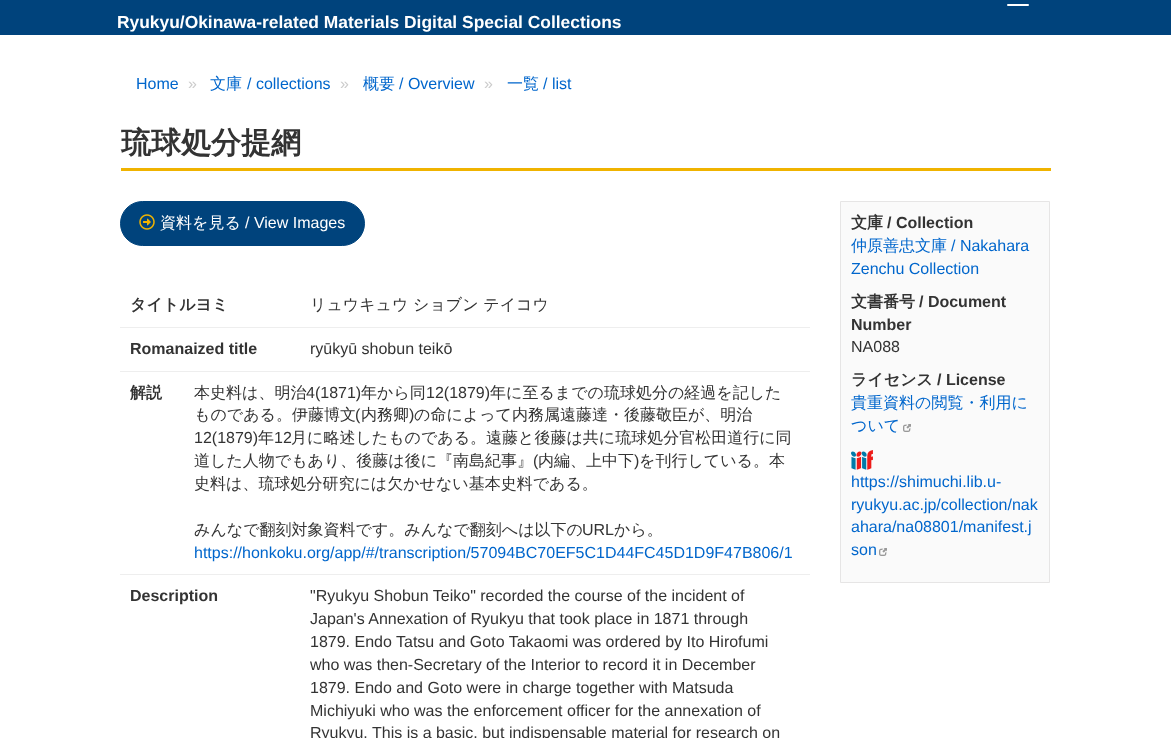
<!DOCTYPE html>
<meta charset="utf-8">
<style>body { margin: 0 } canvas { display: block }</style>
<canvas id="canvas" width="1171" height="738"></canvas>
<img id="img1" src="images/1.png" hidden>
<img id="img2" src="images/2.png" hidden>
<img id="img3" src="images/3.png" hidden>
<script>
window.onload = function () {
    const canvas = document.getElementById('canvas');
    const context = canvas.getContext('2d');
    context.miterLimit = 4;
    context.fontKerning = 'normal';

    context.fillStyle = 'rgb(255, 255, 255)';
    context.fillRect(0, 0, 1171, 738);
    context.fillStyle = 'rgb(0, 67, 124)';
    context.fillRect(0, 0, 1171, 35);
    context.fillStyle = 'rgb(255, 255, 255)';
    context.beginPath();
    context.roundRect(1007, 4, 22, 2, 1);
    context.fill();
    context.fillStyle = 'rgb(240, 179, 0)';
    context.fillRect(121, 168, 930, 3);
    context.fillStyle = 'rgb(0, 67, 124)';
    context.beginPath();
    context.roundRect(120.5, 201.5, 244, 44, 22);
    context.fill();
    context.strokeStyle = 'rgb(0, 67, 124)';
    context.stroke();
    context.drawImage(document.getElementById('img1'), 139, 214, 16, 16);
    context.fillStyle = 'rgb(238, 238, 238)';
    context.fillRect(120, 327, 690, 1);
    context.fillRect(120, 371, 690, 1);
    context.fillRect(120, 574, 690, 1);
    context.fillStyle = 'rgb(250, 250, 250)';
    context.beginPath();
    context.rect(840.5, 201.5, 209, 381);
    context.fill();
    context.strokeStyle = 'rgb(230, 229, 229)';
    context.stroke();
    context.drawImage(document.getElementById('img2'), 903, 424, 8, 8);
    context.drawImage(document.getElementById('img3'), 851, 450, 22, 20);
    context.drawImage(document.getElementById('img2'), 879, 548, 8, 8);
    context.font = 'bold 17.4px Liberation Sans';
    context.fillStyle = 'rgb(255, 255, 255)';
    context.fillText('Ryukyu/Okinawa-related Materials Digital Special Collections', 117, 28);
    context.font = '16px Liberation Sans';
    context.fillStyle = 'rgb(0, 102, 204)';
    context.fillText('Home', 136, 89);
    context.fillStyle = 'rgb(204, 204, 204)';
    context.fillText('»', 188, 89);
    context.font = '500 16px WenQuanYi Zen Hei';
    context.fillStyle = 'rgb(0, 102, 204)';
    context.fillText('文庫', 210, 89);
    context.font = '16px Liberation Sans';
    context.fillText('/ collections', 247, 89);
    context.fillStyle = 'rgb(204, 204, 204)';
    context.fillText('»', 340, 89);
    context.font = '500 16px WenQuanYi Zen Hei';
    context.fillStyle = 'rgb(0, 102, 204)';
    context.fillText('概要', 363, 89);
    context.font = '16px Liberation Sans';
    context.fillText('/ Overview', 399, 89);
    context.fillStyle = 'rgb(204, 204, 204)';
    context.fillText('»', 484, 89);
    context.font = '500 16px WenQuanYi Zen Hei';
    context.fillStyle = 'rgb(0, 102, 204)';
    context.fillText('一覧', 507, 89);
    context.font = '16px Liberation Sans';
    context.fillText('/ list', 543, 89);
    context.font = 'bold 30px WenQuanYi Zen Hei';
    context.fillStyle = 'rgb(51, 51, 51)';
    context.fillText('琉球処分提網', 121, 153);
    context.font = '500 16px WenQuanYi Zen Hei';
    context.fillStyle = 'rgb(255, 255, 255)';
    context.fillText('資料を見る', 160, 228);
    context.font = '16px Liberation Sans';
    context.fillText('/ View Images', 245, 228);
    context.font = 'bold 16px WenQuanYi Zen Hei';
    context.fillStyle = 'rgb(51, 51, 51)';
    context.fillText('タイトルヨミ', 130, 310);
    context.font = '500 16px WenQuanYi Zen Hei';
    context.fillText('リュウキュウ ショブン テイコウ', 310, 310);
    context.font = 'bold 16px Liberation Sans';
    context.fillText('Romanaized title', 130, 354);
    context.font = '16px Liberation Sans';
    context.fillText('ryūkyū shobun teikō', 310, 354);
    context.font = 'bold 16px WenQuanYi Zen Hei';
    context.fillText('解説', 130, 398);
    context.font = '500 16px WenQuanYi Zen Hei';
    context.fillText('本史料は、明治', 194, 398);
    context.font = '16px Liberation Sans';
    context.fillText('4(1871)', 306, 398);
    context.font = '500 16px WenQuanYi Zen Hei';
    context.fillText('年から同', 361, 398);
    context.font = '16px Liberation Sans';
    context.fillText('12(1879)', 426, 398);
    context.font = '500 16px WenQuanYi Zen Hei';
    context.fillText('年に至るまでの琉球処分の経過を記した', 490, 398);
    context.fillText('ものである。伊藤博文', 194, 420);
    context.font = '16px Liberation Sans';
    context.fillText('(', 355, 420);
    context.font = '500 16px WenQuanYi Zen Hei';
    context.fillText('内務卿', 361, 420);
    context.font = '16px Liberation Sans';
    context.fillText(')', 409, 420);
    context.font = '500 16px WenQuanYi Zen Hei';
    context.fillText('の命によって内務属遠藤達・後藤敬臣が、明治', 414, 420);
    context.font = '16px Liberation Sans';
    context.fillText('12(1879)', 194, 443);
    context.font = '500 16px WenQuanYi Zen Hei';
    context.fillText('年', 258, 443);
    context.font = '16px Liberation Sans';
    context.fillText('12', 274, 443);
    context.font = '500 16px WenQuanYi Zen Hei';
    context.fillText('月に略述したものである。遠藤と後藤は共に琉球処分官松田道行に同', 291, 443);
    context.fillText('道した人物でもあり、後藤は後に『南島紀事』', 194, 466);
    context.font = '16px Liberation Sans';
    context.fillText('(', 533, 466);
    context.font = '500 16px WenQuanYi Zen Hei';
    context.fillText('内編、上中下', 538, 466);
    context.font = '16px Liberation Sans';
    context.fillText(')', 634, 466);
    context.font = '500 16px WenQuanYi Zen Hei';
    context.fillText('を刊行している。本', 639, 466);
    context.fillText('史料は、琉球処分研究には欠かせない基本史料である。', 194, 489);
    context.fillText('みんなで翻刻対象資料です。みんなで翻刻へは以下の', 194, 535);
    context.font = '16px Liberation Sans';
    context.fillText('URL', 582, 535);
    context.font = '500 16px WenQuanYi Zen Hei';
    context.fillText('から。', 614, 535);
    context.font = '16px Liberation Sans';
    context.fillStyle = 'rgb(0, 102, 204)';
    context.fillText('https://honkoku.org/app/#/transcription/57094BC70EF5C1D44FC45D1D9F47B806/1', 194, 558);
    context.font = 'bold 16px Liberation Sans';
    context.fillStyle = 'rgb(51, 51, 51)';
    context.fillText('Description', 130, 601);
    context.font = '16px Liberation Sans';
    context.fillText('"Ryukyu Shobun Teiko" recorded the course of the incident of', 310, 601);
    context.fillText('Japan\'s Annexation of Ryukyu that took place in 1871 through', 310, 624);
    context.fillText('1879. Endo Tatsu and Goto Takaomi was ordered by Ito Hirofumi', 310, 647);
    context.fillText('who was then-Secretary of the Interior to record it in December', 310, 670);
    context.fillText('1879. Endo and Goto were in charge together with Matsuda', 310, 693);
    context.fillText('Michiyuki who was the enforcement officer for the annexation of', 310, 716);
    context.fillText('Ryukyu. This is a basic, but indispensable material for research on', 310, 738);
    context.font = 'bold 16px WenQuanYi Zen Hei';
    context.fillText('文庫', 851, 228);
    context.font = 'bold 16px Liberation Sans';
    context.fillText('/ Collection', 887, 228);
    context.font = '500 16px WenQuanYi Zen Hei';
    context.fillStyle = 'rgb(0, 102, 204)';
    context.fillText('仲原善忠文庫', 851, 251);
    context.font = '16px Liberation Sans';
    context.fillText('/ Nakahara', 951, 251);
    context.fillText('Zenchu Collection', 851, 274);
    context.font = 'bold 16px WenQuanYi Zen Hei';
    context.fillStyle = 'rgb(51, 51, 51)';
    context.fillText('文書番号', 851, 307);
    context.font = 'bold 16px Liberation Sans';
    context.fillText('/ Document', 919, 307);
    context.fillText('Number', 851, 330);
    context.font = '16px Liberation Sans';
    context.fillText('NA088', 851, 352);
    context.font = 'bold 16px WenQuanYi Zen Hei';
    context.fillText('ライセンス', 851, 385);
    context.font = 'bold 16px Liberation Sans';
    context.fillText('/ License', 937, 385);
    context.font = '500 16px WenQuanYi Zen Hei';
    context.fillStyle = 'rgb(0, 102, 204)';
    context.fillText('貴重資料の閲覧・利用に', 851, 408);
    context.fillText('ついて', 851, 431);
    context.font = '16px Liberation Sans';
    context.fillText('https://shimuchi.lib.u-', 851, 487);
    context.fillText('ryukyu.ac.jp/collection/nak', 851, 510);
    context.fillText('ahara/na08801/manifest.j', 851, 532);
    context.fillText('son', 851, 555);
};
</script>
